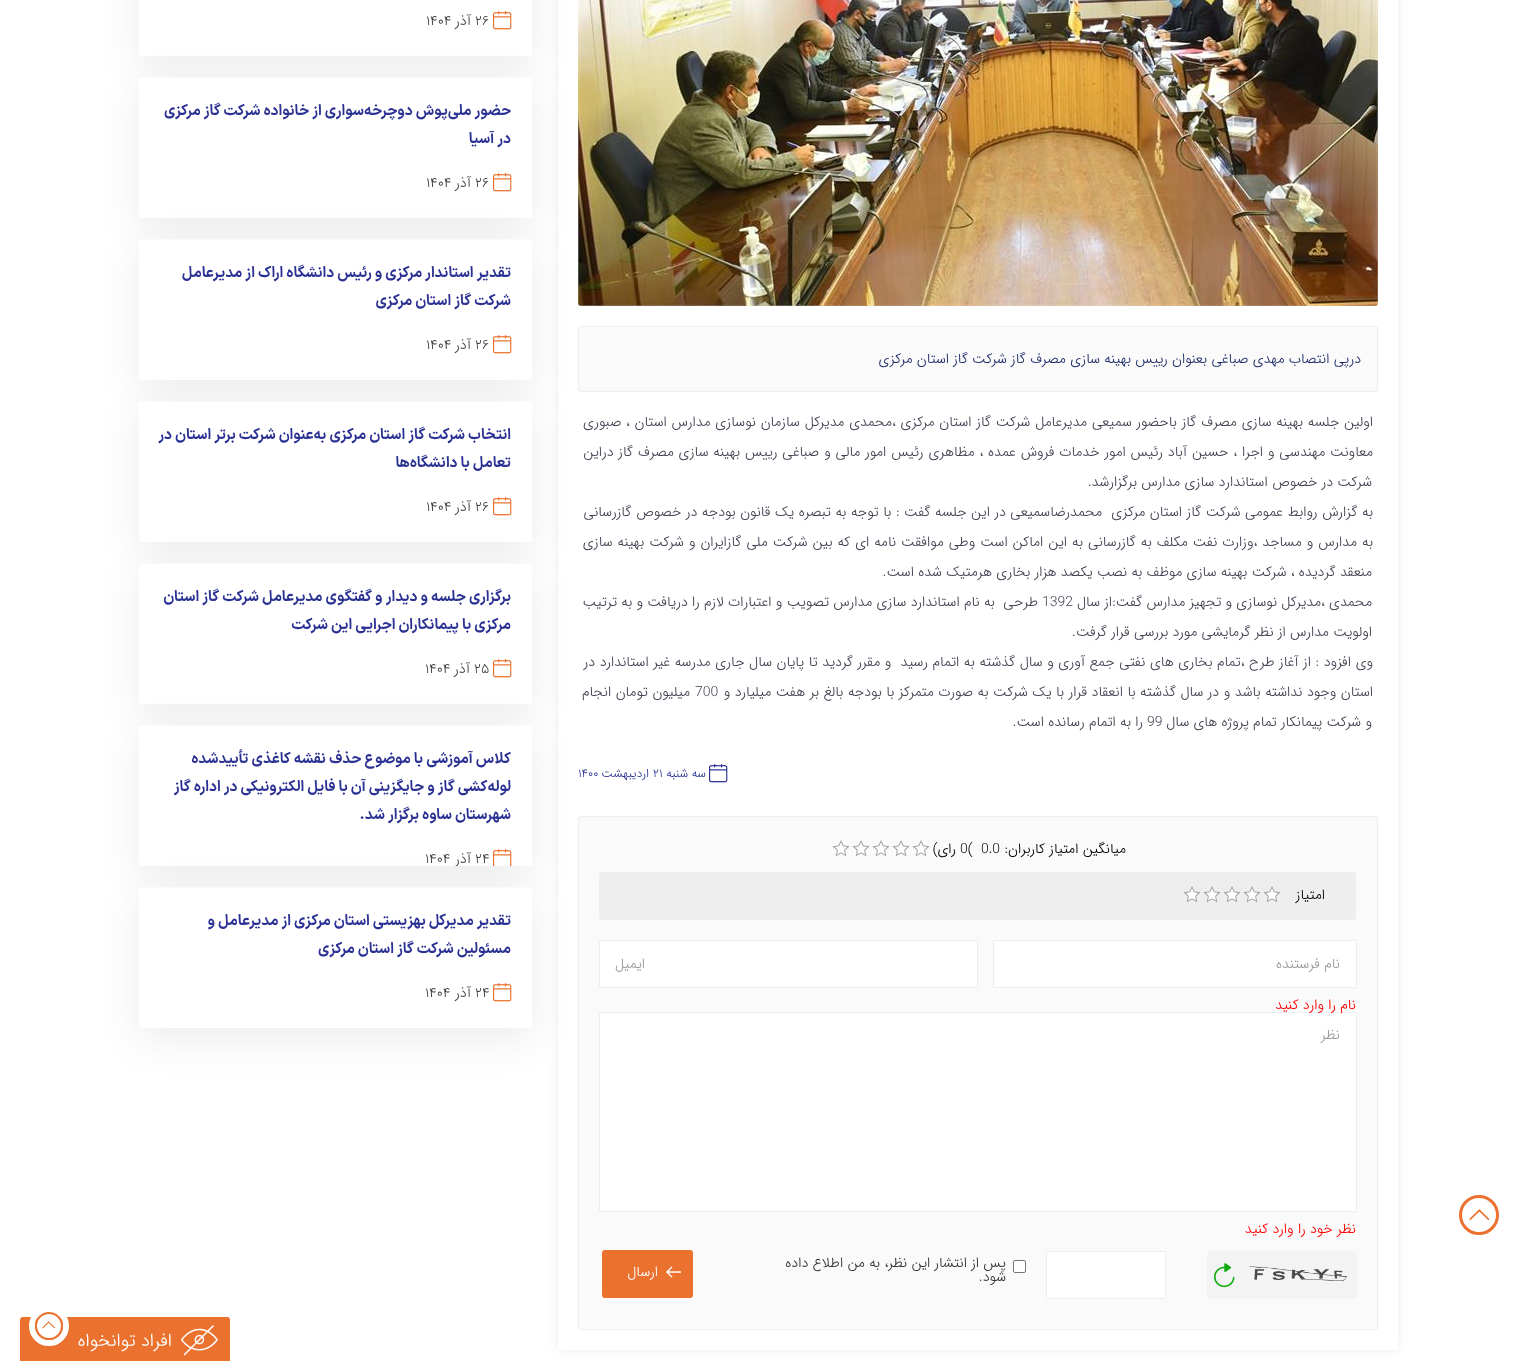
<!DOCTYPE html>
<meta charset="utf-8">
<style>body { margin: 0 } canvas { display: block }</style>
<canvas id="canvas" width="1535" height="1361"></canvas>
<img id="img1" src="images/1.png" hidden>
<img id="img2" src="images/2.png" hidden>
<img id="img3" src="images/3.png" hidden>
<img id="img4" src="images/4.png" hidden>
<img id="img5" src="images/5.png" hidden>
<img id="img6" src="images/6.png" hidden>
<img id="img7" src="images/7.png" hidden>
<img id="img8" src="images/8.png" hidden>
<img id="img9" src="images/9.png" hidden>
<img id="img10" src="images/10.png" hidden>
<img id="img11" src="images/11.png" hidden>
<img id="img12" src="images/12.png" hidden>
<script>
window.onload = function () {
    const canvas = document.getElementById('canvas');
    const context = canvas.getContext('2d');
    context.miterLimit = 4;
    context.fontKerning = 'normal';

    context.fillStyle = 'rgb(255, 255, 255)';
    context.fillRect(0, 0, 1535, 1361);
    context.beginPath();
    context.arc(1479, 1215, 18.5, 0, 2 * Math.PI);
    context.strokeStyle = 'rgb(235, 113, 46)';
    context.lineWidth = 3;
    context.stroke();
    context.drawImage(document.getElementById('img1'), 1469, 1209, 21, 11);
    context.fillStyle = 'rgba(111, 111, 111, 0.15)';
    context.filter = 'blur(5px)';
    context.beginPath();
    context.roundRect(558, -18, 840, 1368, 3);
    context.fill();
    context.filter = 'none';
    context.fillStyle = 'rgb(255, 255, 255)';
    context.beginPath();
    context.roundRect(558, -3, 840, 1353, 3);
    context.fill();
    context.drawImage(document.getElementById('img2'), 578, 0, 800, 306);
    context.fillStyle = 'rgb(250, 250, 250)';
    context.beginPath();
    context.roundRect(578.5, 326.5, 799, 65, 2.5);
    context.fill();
    context.strokeStyle = 'rgb(238, 238, 239)';
    context.lineWidth = 1;
    context.stroke();
    context.drawImage(document.getElementById('img3'), 709, 764, 19, 19);
    context.beginPath();
    context.roundRect(578.5, 816.5, 799, 513, 2.5);
    context.fill();
    context.stroke();
    context.drawImage(document.getElementById('img4'), 912, 840, 18, 17);
    context.drawImage(document.getElementById('img4'), 892, 840, 18, 17);
    context.drawImage(document.getElementById('img4'), 872, 840, 18, 17);
    context.drawImage(document.getElementById('img4'), 852, 840, 18, 17);
    context.drawImage(document.getElementById('img4'), 832, 840, 18, 17);
    context.fillStyle = 'rgb(238, 238, 239)';
    context.beginPath();
    context.roundRect(599.5, 872.5, 756, 47, 2.5);
    context.fill();
    context.stroke();
    context.drawImage(document.getElementById('img5'), 1263, 886, 18, 17);
    context.drawImage(document.getElementById('img5'), 1243, 886, 18, 17);
    context.drawImage(document.getElementById('img5'), 1223, 886, 18, 17);
    context.drawImage(document.getElementById('img5'), 1203, 886, 18, 17);
    context.drawImage(document.getElementById('img5'), 1183, 886, 18, 17);
    context.fillStyle = 'rgb(255, 255, 255)';
    context.beginPath();
    context.rect(993.5, 940.5, 363, 47);
    context.fill();
    context.stroke();
    context.beginPath();
    context.rect(599.5, 940.5, 378, 47);
    context.fill();
    context.stroke();
    context.beginPath();
    context.rect(599.5, 1012.5, 757, 199);
    context.fill();
    context.stroke();
    context.fillStyle = 'rgb(244, 243, 244)';
    context.beginPath();
    context.roundRect(1207, 1251, 150, 48, 3);
    context.fill();
    context.drawImage(document.getElementById('img6'), 1248, 1266, 102, 17);
    context.drawImage(document.getElementById('img7'), 1214, 1263, 21, 25);
    context.fillStyle = 'rgb(255, 255, 255)';
    context.beginPath();
    context.rect(1046.5, 1251.5, 119, 47);
    context.fill();
    context.stroke();
    context.beginPath();
    context.roundRect(1013.5, 1260.5, 12, 12, 1.5);
    context.fill();
    context.strokeStyle = 'rgb(118, 118, 118)';
    context.stroke();
    context.fillStyle = 'rgb(235, 113, 46)';
    context.beginPath();
    context.roundRect(602, 1250, 91, 48, 3);
    context.fill();
    context.drawImage(document.getElementById('img8'), 666, 1266, 15, 12);
    context.fillStyle = 'rgba(0, 0, 0, 0.08)';
    context.filter = 'blur(20px)';
    context.beginPath();
    context.roundRect(139, -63, 393, 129, 3);
    context.fill();
    context.filter = 'none';
    context.fillStyle = 'rgb(255, 255, 255)';
    context.beginPath();
    context.roundRect(139, -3, 393, 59, 3);
    context.fill();
    context.drawImage(document.getElementById('img9'), 493, 11, 19, 19);
    context.beginPath();
    context.roundRect(138.5, 77.5, 394, 141, 2.5);
    context.strokeStyle = 'rgb(255, 255, 255)';
    context.stroke();
    context.fillStyle = 'rgba(0, 0, 0, 0.08)';
    context.filter = 'blur(20px)';
    context.beginPath();
    context.roundRect(139, 88, 393, 140, 3);
    context.fill();
    context.filter = 'none';
    context.fillStyle = 'rgb(255, 255, 255)';
    context.beginPath();
    context.roundRect(139, 78, 393, 140, 3);
    context.fill();
    context.drawImage(document.getElementById('img9'), 493, 173, 19, 19);
    context.beginPath();
    context.roundRect(138.5, 239.5, 394, 141, 2.5);
    context.stroke();
    context.fillStyle = 'rgba(0, 0, 0, 0.08)';
    context.filter = 'blur(20px)';
    context.beginPath();
    context.roundRect(139, 250, 393, 140, 3);
    context.fill();
    context.filter = 'none';
    context.fillStyle = 'rgb(255, 255, 255)';
    context.beginPath();
    context.roundRect(139, 240, 393, 140, 3);
    context.fill();
    context.drawImage(document.getElementById('img9'), 493, 335, 19, 19);
    context.beginPath();
    context.roundRect(138.5, 401.5, 394, 141, 2.5);
    context.stroke();
    context.fillStyle = 'rgba(0, 0, 0, 0.08)';
    context.filter = 'blur(20px)';
    context.beginPath();
    context.roundRect(139, 412, 393, 140, 3);
    context.fill();
    context.filter = 'none';
    context.fillStyle = 'rgb(255, 255, 255)';
    context.beginPath();
    context.roundRect(139, 402, 393, 140, 3);
    context.fill();
    context.drawImage(document.getElementById('img9'), 493, 497, 19, 19);
    context.beginPath();
    context.roundRect(138.5, 563.5, 394, 141, 2.5);
    context.stroke();
    context.fillStyle = 'rgba(0, 0, 0, 0.08)';
    context.filter = 'blur(20px)';
    context.beginPath();
    context.roundRect(139, 574, 393, 140, 3);
    context.fill();
    context.filter = 'none';
    context.fillStyle = 'rgb(255, 255, 255)';
    context.beginPath();
    context.roundRect(139, 564, 393, 140, 3);
    context.fill();
    context.drawImage(document.getElementById('img9'), 493, 659, 19, 19);
    context.beginPath();
    context.roundRect(138.5, 725.5, 394, 141, 2.5);
    context.stroke();
    context.fillStyle = 'rgba(0, 0, 0, 0.08)';
    context.filter = 'blur(20px)';
    context.beginPath();
    context.roundRect(139, 736, 393, 140, 3);
    context.fill();
    context.filter = 'none';
    context.fillStyle = 'rgb(255, 255, 255)';
    context.beginPath();
    context.roundRect(139, 726, 393, 140, 3);
    context.fill();
    context.drawImage(document.getElementById('img10'), 493, 849, 19, 17);
    context.beginPath();
    context.roundRect(138.5, 887.5, 394, 141, 2.5);
    context.stroke();
    context.fillStyle = 'rgba(0, 0, 0, 0.08)';
    context.filter = 'blur(20px)';
    context.beginPath();
    context.roundRect(139, 898, 393, 140, 3);
    context.fill();
    context.filter = 'none';
    context.fillStyle = 'rgb(255, 255, 255)';
    context.beginPath();
    context.roundRect(139, 888, 393, 140, 3);
    context.fill();
    context.drawImage(document.getElementById('img9'), 493, 983, 19, 19);
    context.fillStyle = 'rgb(235, 113, 46)';
    context.beginPath();
    context.roundRect(20, 1317, 210, 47, 3);
    context.fill();
    context.drawImage(document.getElementById('img11'), 181, 1325, 37, 31);
    context.beginPath();
    context.arc(49, 1326, 17, 0, 2 * Math.PI);
    context.lineWidth = 6;
    context.stroke();
    context.fillStyle = 'rgb(255, 255, 255)';
    context.beginPath();
    context.arc(49, 1326, 13, 0, 2 * Math.PI);
    context.fill();
    context.strokeStyle = 'rgb(235, 113, 46)';
    context.lineWidth = 2;
    context.stroke();
    context.drawImage(document.getElementById('img12'), 42, 1321, 14, 8);
    context.direction = 'rtl';
    context.font = '300 14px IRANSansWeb';
    context.fillStyle = 'rgb(30, 44, 105)';
    context.fillText('درپی انتصاب مهدی صباغی بعنوان رییس بهینه سازی مصرف گاز شرکت گاز استان مرکزی', 1361, 363);
    context.wordSpacing = '0.5px';
    context.fillStyle = 'rgb(67, 66, 83)';
    context.fillText('اولین جلسه بهینه سازی مصرف گاز باحضور سمیعی مدیرعامل شرکت گاز استان مرکزی ،محمدی مدیرکل سازمان نوسازی مدارس استان ، صبوری', 1373, 426);
    context.wordSpacing = '0.6px';
    context.fillText('معاونت مهندسی و اجرا ، حسین آباد رئیس امور خدمات فروش عمده ، مظاهری رئیس امور مالی و صباغی رییس بهینه سازی مصرف گاز دراین', 1373, 456);
    context.wordSpacing = '0px';
    context.fillText('شرکت در خصوص استاندارد سازی مدارس برگزارشد.', 1372, 486);
    context.wordSpacing = '0.3px';
    context.fillText('به گزارش روابط عمومی شرکت گاز استان مرکزی  محمدرضاسمیعی در این جلسه گفت : با توجه به تبصره یک قانون بودجه در خصوص گازرسانی', 1373, 516);
    context.wordSpacing = '0.7px';
    context.fillText('به مدارس و مساجد ،وزارت نفت مکلف به گازرسانی به این اماکن است وطی موافقت نامه ای که بین شرکت ملی گازایران و شرکت بهینه سازی', 1373, 546);
    context.wordSpacing = '0px';
    context.fillText('منعقد گردیده ، شرکت بهینه سازی موظف به نصب یکصد هزار بخاری هرمتیک شده است.', 1372, 576);
    context.fillText('محمدی ،مدیرکل نوسازی و تجهیز مدارس گفت:از سال', 1372, 606);
    context.direction = 'ltr';
    context.fillText('1392', 1042, 606);
    context.direction = 'rtl';
    context.fillText('طرحی  به نام استاندارد سازی مدارس تصویب و اعتبارات لازم را دریافت و به ترتیب', 1038, 606);
    context.fillText('اولویت مدارس از نظر گرمایشی مورد بررسی قرار گرفت.', 1372, 636);
    context.wordSpacing = '0.3px';
    context.fillText('وی افزود : از آغاز طرح ،تمام بخاری های نفتی جمع آوری و سال گذشته به اتمام رسید  و مقرر گردید تا پایان سال جاری مدرسه غیر استاندارد در', 1373, 666);
    context.wordSpacing = '0.25px';
    context.fillText('استان وجود نداشته باشد و در سال گذشته با انعقاد قرار با یک شرکت به صورت متمرکز با بودجه بالغ بر هفت میلیارد و', 1373, 696);
    context.wordSpacing = '0px';
    context.direction = 'ltr';
    context.fillText('700', 695, 696);
    context.wordSpacing = '0.25px';
    context.direction = 'rtl';
    context.fillText('میلیون تومان انجام', 690, 696);
    context.wordSpacing = '0px';
    context.fillText('و شرکت پیمانکار تمام پروژه های سال', 1372, 726);
    context.direction = 'ltr';
    context.fillText('99', 1147, 726);
    context.direction = 'rtl';
    context.fillText('را به اتمام رسانده است.', 1143, 726);
    context.font = '300 12px IRANSansWeb';
    context.fillStyle = 'rgb(42, 49, 147)';
    context.fillText('سه شنبه', 706, 777);
    context.direction = 'ltr';
    context.fillText('۲۱', 653, 777);
    context.direction = 'rtl';
    context.fillText('اردیبهشت', 649, 777);
    context.direction = 'ltr';
    context.fillText('۱۴۰۰', 578, 777);
    context.direction = 'rtl';
    context.font = '300 14px IRANSansWeb';
    context.fillStyle = 'rgb(0, 0, 0)';
    context.fillText('میانگین امتیاز کاربران:', 1126, 853);
    context.direction = 'ltr';
    context.fillText('0.0', 981, 853);
    context.fillText('0(', 960, 853);
    context.direction = 'rtl';
    context.fillText('رای)', 956, 853);
    context.fillText('امتیاز', 1325, 899);
    context.fillStyle = 'rgb(153, 153, 153)';
    context.fillText('نام فرستنده', 1340, 968);
    context.fillStyle = 'rgb(255, 0, 0)';
    context.fillText('نام را وارد کنید', 1356, 1009);
    context.fillStyle = 'rgb(153, 153, 153)';
    context.fillText('ایمیل', 645, 968);
    context.fillText('نظر', 1340, 1039);
    context.fillStyle = 'rgb(255, 0, 0)';
    context.fillText('نظر خود را وارد کنید', 1356, 1233);
    context.fillStyle = 'rgb(51, 51, 51)';
    context.fillText('پس از انتشار این نظر، به من اطلاع داده', 1006, 1267);
    context.fillText('شود.', 1006, 1281);
    context.fillStyle = 'rgb(255, 255, 255)';
    context.fillText('ارسال', 658, 1276);
    context.direction = 'ltr';
    context.fillStyle = 'rgb(63, 62, 61)';
    context.fillText('۲۶', 475, 25);
    context.direction = 'rtl';
    context.fillText('آذر', 471, 25);
    context.direction = 'ltr';
    context.fillText('۱۴۰۴', 426, 25);
    context.direction = 'rtl';
    context.font = 'bold 15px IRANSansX';
    context.fillStyle = 'rgb(42, 49, 147)';
    context.fillText('حضور ملی‌پوش دوچرخه‌سواری از خانواده شرکت گاز مرکزی', 511, 115);
    context.fillText('در آسیا', 511, 143);
    context.direction = 'ltr';
    context.font = '300 14px IRANSansWeb';
    context.fillStyle = 'rgb(63, 62, 61)';
    context.fillText('۲۶', 475, 187);
    context.direction = 'rtl';
    context.fillText('آذر', 471, 187);
    context.direction = 'ltr';
    context.fillText('۱۴۰۴', 426, 187);
    context.direction = 'rtl';
    context.font = 'bold 15px IRANSansX';
    context.fillStyle = 'rgb(42, 49, 147)';
    context.fillText('تقدیر استاندار مرکزی و رئیس دانشگاه اراک از مدیرعامل', 511, 277);
    context.fillText('شرکت گاز استان مرکزی', 511, 305);
    context.direction = 'ltr';
    context.font = '300 14px IRANSansWeb';
    context.fillStyle = 'rgb(63, 62, 61)';
    context.fillText('۲۶', 475, 349);
    context.direction = 'rtl';
    context.fillText('آذر', 471, 349);
    context.direction = 'ltr';
    context.fillText('۱۴۰۴', 426, 349);
    context.direction = 'rtl';
    context.font = 'bold 15px IRANSansX';
    context.fillStyle = 'rgb(42, 49, 147)';
    context.fillText('انتخاب شرکت گاز استان مرکزی به‌عنوان شرکت برتر استان در', 511, 439);
    context.fillText('تعامل با دانشگاه‌ها', 511, 467);
    context.direction = 'ltr';
    context.font = '300 14px IRANSansWeb';
    context.fillStyle = 'rgb(63, 62, 61)';
    context.fillText('۲۶', 475, 511);
    context.direction = 'rtl';
    context.fillText('آذر', 471, 511);
    context.direction = 'ltr';
    context.fillText('۱۴۰۴', 426, 511);
    context.direction = 'rtl';
    context.font = 'bold 15px IRANSansX';
    context.fillStyle = 'rgb(42, 49, 147)';
    context.fillText('برگزاری جلسه و دیدار و گفتگوی مدیرعامل شرکت گاز استان', 511, 601);
    context.fillText('مرکزی با پیمانکاران اجرایی این شرکت', 511, 629);
    context.direction = 'ltr';
    context.font = '300 14px IRANSansWeb';
    context.fillStyle = 'rgb(63, 62, 61)';
    context.fillText('۲۵', 474, 673);
    context.direction = 'rtl';
    context.fillText('آذر', 470, 673);
    context.direction = 'ltr';
    context.fillText('۱۴۰۴', 425, 673);
    context.direction = 'rtl';
    context.font = 'bold 15px IRANSansX';
    context.fillStyle = 'rgb(42, 49, 147)';
    context.fillText('کلاس آموزشی با موضوع حذف نقشه کاغذی تأییدشده', 511, 763);
    context.fillText('لوله‌کشی گاز و جایگزینی آن با فایل الکترونیکی در اداره گاز', 511, 791);
    context.fillText('شهرستان ساوه برگزار شد.', 511, 819);
    context.direction = 'ltr';
    context.font = '300 14px IRANSansWeb';
    context.fillStyle = 'rgb(63, 62, 61)';
    context.fillText('۲۴', 475, 863);
    context.save();
    context.beginPath();
    context.roundRect(139, 726, 393, 140, 3);
    context.clip();
    context.direction = 'rtl';
    context.fillText('آذر', 471, 863);
    context.restore();
    context.fillText('۱۴۰۴', 425, 863);
    context.direction = 'rtl';
    context.font = 'bold 15px IRANSansX';
    context.fillStyle = 'rgb(42, 49, 147)';
    context.fillText('تقدیر مدیرکل بهزیستی استان مرکزی از مدیرعامل و', 511, 925);
    context.fillText('مسئولین شرکت گاز استان مرکزی', 511, 953);
    context.direction = 'ltr';
    context.font = '300 14px IRANSansWeb';
    context.fillStyle = 'rgb(63, 62, 61)';
    context.fillText('۲۴', 475, 997);
    context.direction = 'rtl';
    context.fillText('آذر', 471, 997);
    context.direction = 'ltr';
    context.fillText('۱۴۰۴', 425, 997);
    context.direction = 'rtl';
    context.font = '300 18px IRANSansWeb';
    context.fillStyle = 'rgb(255, 255, 255)';
    context.fillText('افراد توانخواه', 172, 1346);
};
</script>
